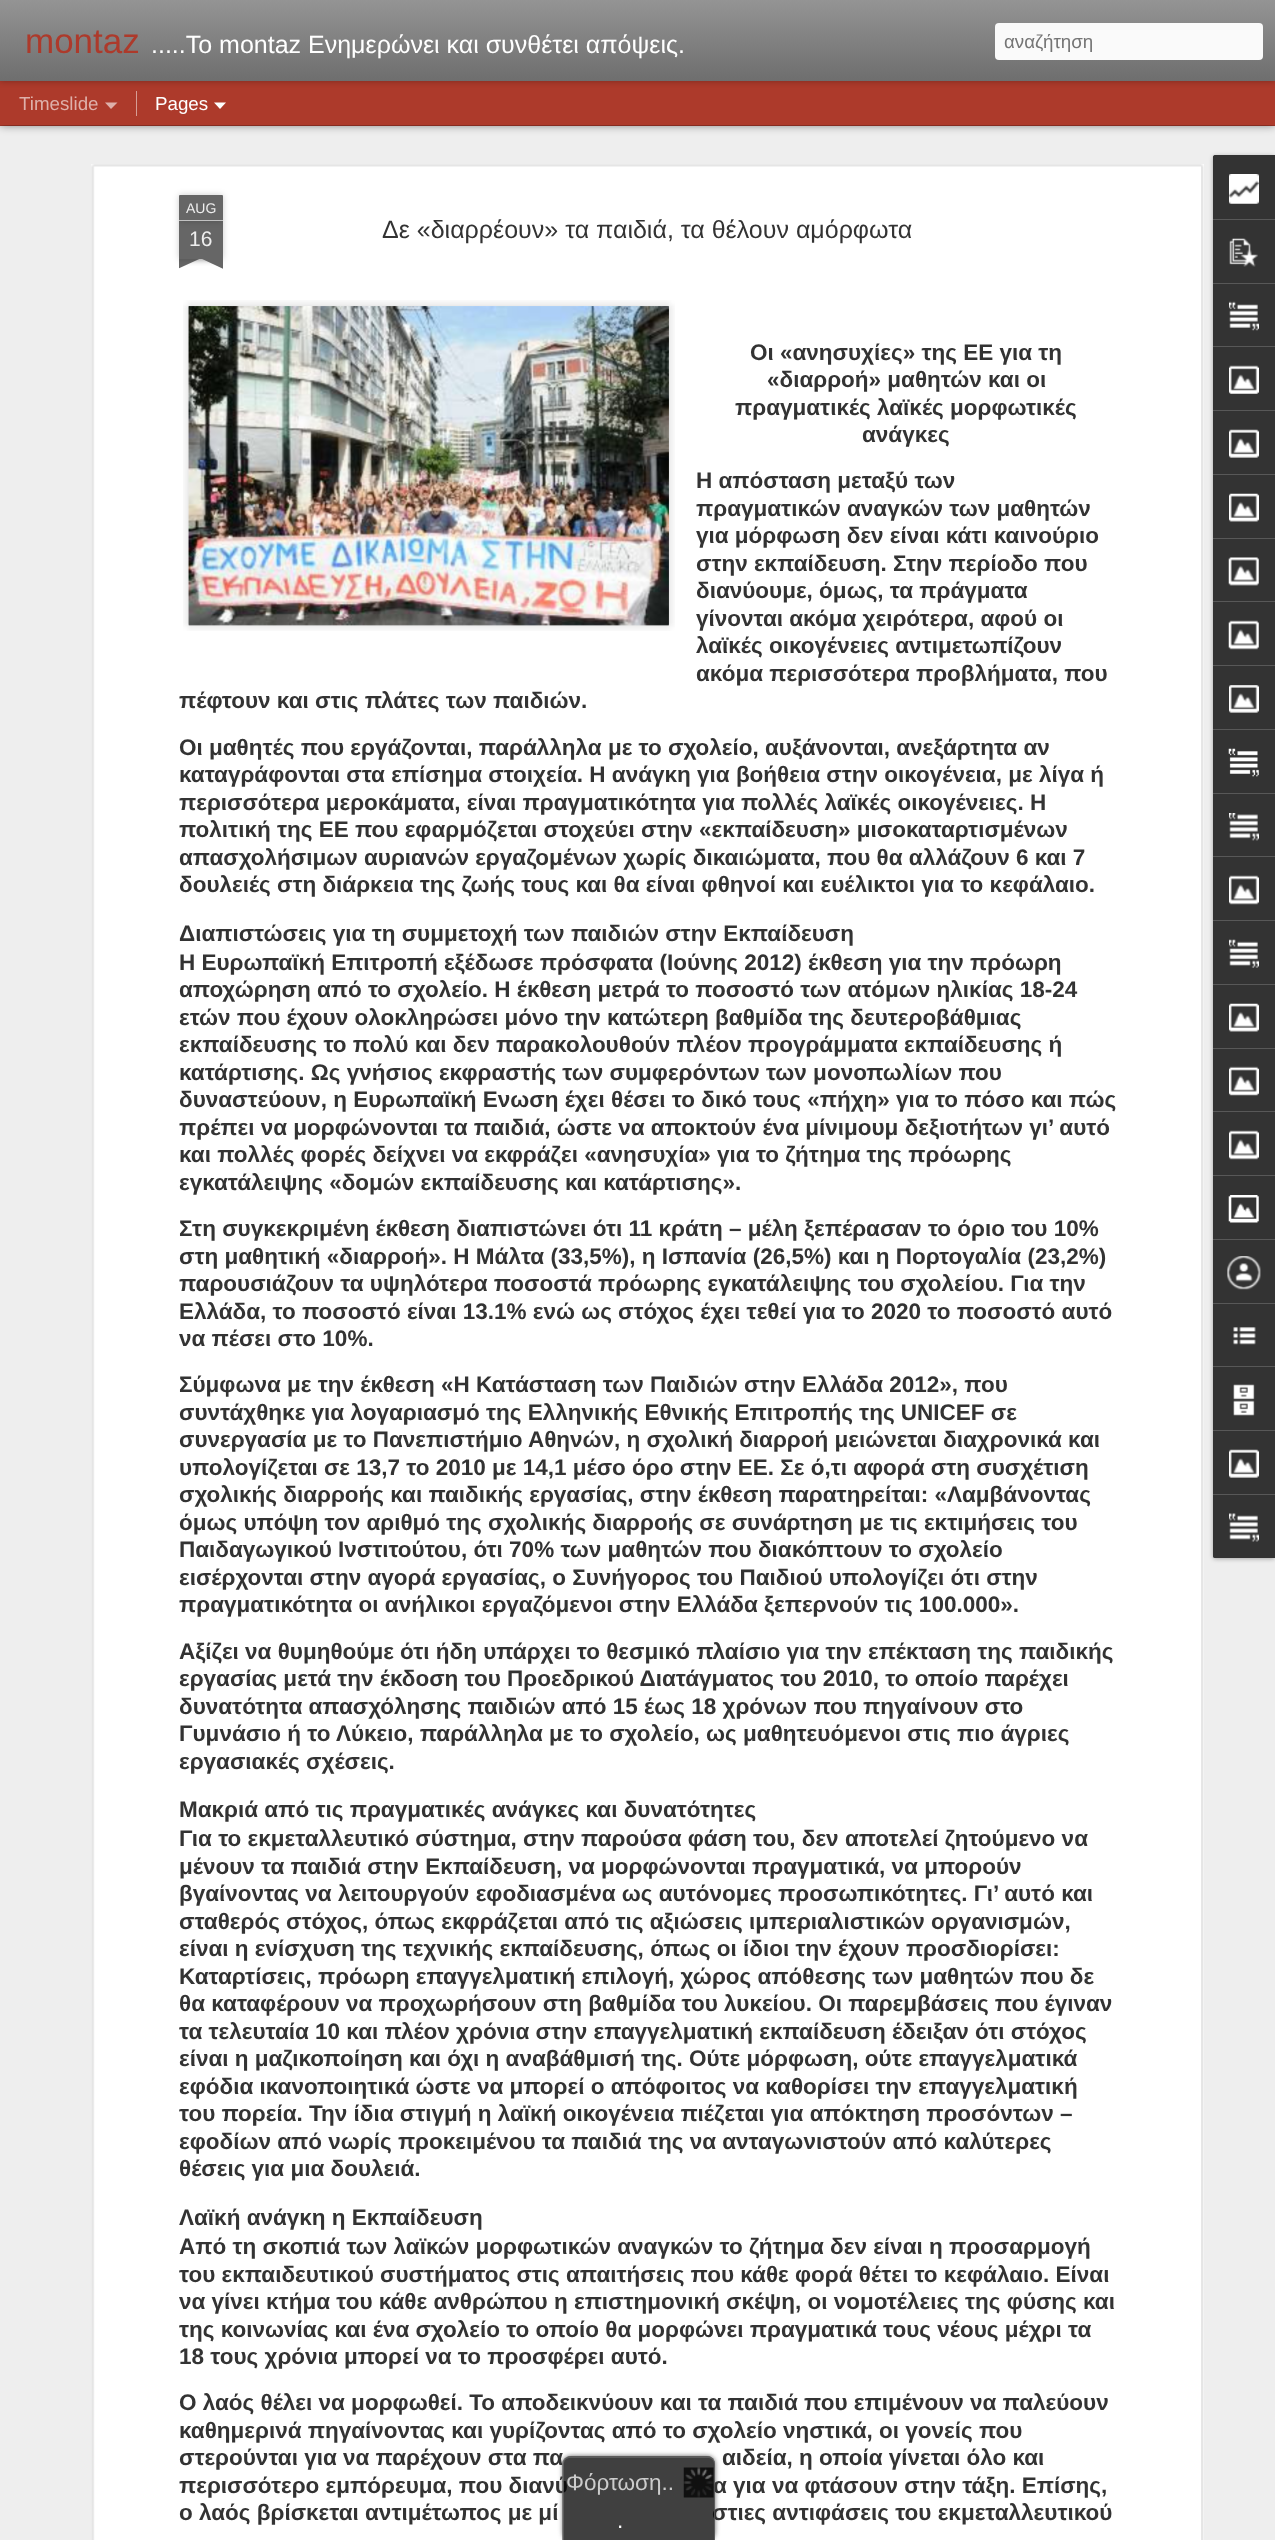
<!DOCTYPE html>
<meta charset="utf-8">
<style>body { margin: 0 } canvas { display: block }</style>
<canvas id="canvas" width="1275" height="2540"></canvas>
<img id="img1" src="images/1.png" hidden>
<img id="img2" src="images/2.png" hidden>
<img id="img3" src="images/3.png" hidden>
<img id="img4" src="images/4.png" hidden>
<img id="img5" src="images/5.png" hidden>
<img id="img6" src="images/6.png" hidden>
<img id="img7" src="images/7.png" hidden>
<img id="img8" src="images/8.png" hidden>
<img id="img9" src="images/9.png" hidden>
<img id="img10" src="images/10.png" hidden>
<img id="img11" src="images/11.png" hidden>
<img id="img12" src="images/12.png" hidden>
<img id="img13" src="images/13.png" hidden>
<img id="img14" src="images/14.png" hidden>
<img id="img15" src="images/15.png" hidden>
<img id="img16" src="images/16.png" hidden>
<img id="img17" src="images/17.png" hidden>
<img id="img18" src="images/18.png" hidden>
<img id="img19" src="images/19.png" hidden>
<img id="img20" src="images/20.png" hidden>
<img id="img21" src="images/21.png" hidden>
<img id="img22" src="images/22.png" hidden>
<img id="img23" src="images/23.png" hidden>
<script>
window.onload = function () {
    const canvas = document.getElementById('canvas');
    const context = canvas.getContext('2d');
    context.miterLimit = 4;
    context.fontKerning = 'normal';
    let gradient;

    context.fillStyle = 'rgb(173, 58, 43)';
    context.fillRect(0, 0, 1275, 2540);
    context.fillStyle = 'rgb(238, 238, 238)';
    context.fillRect(0, 126, 1275, 2414);
    context.fillStyle = 'rgba(0, 0, 0, 0.5)';
    context.filter = 'blur(5px)';
    context.beginPath();
    context.rect(0, 81, 1275, 44);
    context.fill();
    context.filter = 'none';
    context.fillStyle = 'rgb(173, 58, 43)';
    context.fillRect(0, 81, 1275, 44);
    context.fillStyle = 'rgba(0, 0, 0, 0.3)';
    context.filter = 'blur(3px)';
    context.beginPath();
    context.rect(0, 0, 1275, 81);
    context.fill();
    context.filter = 'none';
    gradient = context.createLinearGradient(0, 0, 0, 81);
    gradient.addColorStop(0, 'rgb(148, 148, 148)');
    gradient.addColorStop(1, 'rgb(110, 110, 110)');
    context.fillStyle = gradient;
    context.fillRect(0, 0, 1275, 81);
    context.fillStyle = 'rgb(250, 250, 250)';
    context.beginPath();
    context.roundRect(995, 23, 268, 37, 4);
    context.fill();
    context.fillStyle = 'rgb(222, 176, 170)';
    context.beginPath();
    context.moveTo(105, 102.5);
    context.lineTo(117.5, 102.5);
    context.lineTo(111, 109);
    context.closePath();
    context.fill();
    context.fillStyle = 'rgb(214, 157, 149)';
    context.fillRect(136, 91, 1, 25);
    context.fillStyle = 'rgb(255, 255, 255)';
    context.beginPath();
    context.moveTo(214, 102.5);
    context.lineTo(226, 102.5);
    context.lineTo(220, 109);
    context.closePath();
    context.fill();
    context.fillRect(91, 164, 1113, 2376);
    context.drawImage(document.getElementById('img1'), 91, 164, 1113, 2376);
    context.fillStyle = 'rgba(0, 0, 0, 0.2)';
    context.filter = 'blur(3px)';
    context.beginPath();
    context.rect(179, 221, 44, 38);
    context.fill();
    context.filter = 'none';
    context.fillStyle = 'rgb(102, 102, 102)';
    context.fillRect(179, 221, 44, 38);
    context.fillStyle = 'rgba(0, 0, 0, 0.2)';
    context.filter = 'blur(3px)';
    context.beginPath();
    context.roundRect(179, 195, 44, 26, 1);
    context.fill();
    context.filter = 'none';
    context.fillStyle = 'rgb(102, 102, 102)';
    context.beginPath();
    context.roundRect(179, 195, 44, 26, [1, 1, 0, 0]);
    context.fill();
    context.fillStyle = 'rgb(194, 194, 194)';
    context.fillRect(179, 220, 44, 1);
    context.save();
    context.beginPath();
    context.rect(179, 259, 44, 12);
    context.clip();
    context.fillStyle = 'rgba(0, 0, 0, 0.2)';
    context.filter = 'blur(3px)';
    context.beginPath();
    context.rect(168, 246, 62, 13);
    context.fill();
    context.filter = 'none';
    context.restore();
    context.save();
    context.beginPath();
    context.rect(179, 259, 44, 12);
    context.clip();
    context.fillStyle = 'rgb(102, 102, 102)';
    context.beginPath();
    context.moveTo(168, 260);
    context.lineTo(224, 234);
    context.lineTo(230, 245);
    context.lineTo(173, 271);
    context.closePath();
    context.fill();
    context.restore();
    context.save();
    context.beginPath();
    context.rect(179, 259, 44, 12);
    context.clip();
    context.fillStyle = 'rgba(0, 0, 0, 0.2)';
    context.filter = 'blur(3px)';
    context.beginPath();
    context.rect(171, 246, 63, 13);
    context.fill();
    context.filter = 'none';
    context.restore();
    context.save();
    context.beginPath();
    context.rect(179, 259, 44, 12);
    context.clip();
    context.fillStyle = 'rgb(102, 102, 102)';
    context.beginPath();
    context.moveTo(177, 234);
    context.lineTo(233, 260);
    context.lineTo(228, 271);
    context.lineTo(172, 245);
    context.closePath();
    context.fill();
    context.restore();
    context.drawImage(document.getElementById('img2'), 183, 300, 492, 331);
    context.drawImage(document.getElementById('img3'), 188, 306, 481, 320);
    context.fillStyle = 'rgba(0, 0, 0, 0.3)';
    context.filter = 'blur(2px)';
    context.beginPath();
    context.roundRect(1213, 156, 62, 1403, 2.5);
    context.fill();
    context.filter = 'none';
    context.fillStyle = 'rgb(51, 51, 51)';
    context.beginPath();
    context.roundRect(1213, 155, 62, 1403, [2.5, 0, 0, 2.5]);
    context.fill();
    context.beginPath();
    context.roundRect(1213, 155, 62, 64, [2.5, 0, 0, 0]);
    context.fill();
    context.drawImage(document.getElementById('img4'), 1229, 174, 30, 30);
    context.fillStyle = 'rgb(88, 88, 88)';
    context.fillRect(1213, 219, 62, 1);
    context.drawImage(document.getElementById('img5'), 1229, 238, 29, 29);
    context.fillRect(1213, 283, 62, 1);
    context.drawImage(document.getElementById('img6'), 1229, 301, 30, 30);
    context.fillRect(1213, 346, 62, 1);
    context.drawImage(document.getElementById('img7'), 1229, 365, 30, 29);
    context.fillRect(1213, 410, 62, 1);
    context.drawImage(document.getElementById('img8'), 1229, 429, 30, 29);
    context.fillRect(1213, 474, 62, 1);
    context.drawImage(document.getElementById('img9'), 1229, 493, 30, 29);
    context.fillRect(1213, 538, 62, 1);
    context.drawImage(document.getElementById('img10'), 1228, 557, 31, 29);
    context.fillRect(1213, 601, 62, 1);
    context.drawImage(document.getElementById('img11'), 1228, 620, 31, 30);
    context.fillRect(1213, 665, 62, 1);
    context.drawImage(document.getElementById('img12'), 1229, 685, 30, 28);
    context.fillRect(1213, 729, 62, 1);
    context.drawImage(document.getElementById('img13'), 1228, 748, 31, 29);
    context.fillRect(1213, 793, 62, 1);
    context.drawImage(document.getElementById('img14'), 1229, 813, 30, 28);
    context.fillRect(1213, 856, 62, 1);
    context.drawImage(document.getElementById('img15'), 1229, 875, 30, 30);
    context.fillRect(1213, 920, 62, 1);
    context.drawImage(document.getElementById('img16'), 1229, 939, 30, 29);
    context.fillRect(1213, 984, 62, 1);
    context.drawImage(document.getElementById('img9'), 1229, 1003, 30, 29);
    context.fillRect(1213, 1048, 62, 1);
    context.drawImage(document.getElementById('img17'), 1229, 1066, 30, 30);
    context.fillRect(1213, 1111, 62, 1);
    context.drawImage(document.getElementById('img15'), 1229, 1130, 30, 30);
    context.fillRect(1213, 1175, 62, 1);
    context.drawImage(document.getElementById('img18'), 1228, 1195, 31, 28);
    context.fillRect(1213, 1239, 62, 1);
    context.drawImage(document.getElementById('img19'), 1227, 1256, 34, 34);
    context.fillRect(1213, 1303, 62, 1);
    context.drawImage(document.getElementById('img20'), 1233, 1327, 23, 18);
    context.fillRect(1213, 1366, 62, 1);
    context.drawImage(document.getElementById('img21'), 1233, 1384, 22, 32);
    context.fillRect(1213, 1430, 62, 1);
    context.drawImage(document.getElementById('img8'), 1229, 1449, 30, 29);
    context.fillStyle = 'rgb(51, 51, 51)';
    context.beginPath();
    context.roundRect(1213, 1494, 62, 64, [0, 0, 0, 2.5]);
    context.fill();
    context.fillStyle = 'rgb(88, 88, 88)';
    context.fillRect(1213, 1494, 62, 1);
    context.drawImage(document.getElementById('img22'), 1229, 1513, 30, 29);
    context.save();
    context.beginPath();
    context.moveTo(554, 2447);
    context.lineTo(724, 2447);
    context.lineTo(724, 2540);
    context.lineTo(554, 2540);
    context.closePath();
    context.moveTo(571, 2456);
    context.lineTo(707, 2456);
    context.bezierCurveTo(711.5, 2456, 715, 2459.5, 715, 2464);
    context.lineTo(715, 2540);
    context.lineTo(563, 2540);
    context.lineTo(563, 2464);
    context.bezierCurveTo(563, 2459.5, 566.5, 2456, 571, 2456);
    context.closePath();
    context.clip('evenodd');
    context.fillStyle = 'rgba(51, 51, 51, 0.75)';
    context.filter = 'blur(2.5px)';
    context.beginPath();
    context.roundRect(563, 2456, 152, 84, 8);
    context.fill();
    context.filter = 'none';
    context.restore();
    context.font = '35px Liberation Sans';
    context.fillStyle = 'rgb(173, 58, 43)';
    context.fillText('montaz', 25, 53);
    context.font = '25px Liberation Sans';
    context.fillStyle = 'rgb(255, 255, 255)';
    context.fillText('.....Το montaz Ενημερώνει και συνθέτει απόψεις.', 151, 53);
    context.font = '18.75px Liberation Sans';
    context.fillStyle = 'rgb(117, 117, 117)';
    context.fillText('αναζήτηση', 1004, 48);
    context.fillStyle = 'rgb(222, 176, 170)';
    context.fillText('Timeslide', 19, 110);
    context.fillStyle = 'rgb(255, 255, 255)';
    context.fillText('Pages', 155, 110);
    context.font = '14px Liberation Sans';
    context.fillStyle = 'rgb(238, 238, 238)';
    context.fillText('AUG', 186, 213);
    context.font = '21px Liberation Sans';
    context.fillText('16', 189, 246);
    context.font = '25px Liberation Sans';
    context.fillStyle = 'rgb(51, 51, 51)';
    context.fillText('Δε «διαρρέουν» τα παιδιά, τα θέλουν αμόρφωτα', 382, 238);
    context.font = 'bold 22.5px Liberation Sans';
    context.fillText('Οι «ανησυχίες» της ΕΕ για τη', 750, 360);
    context.fillText('«διαρροή» μαθητών και οι', 767, 387);
    context.fillText('πραγματικές λαϊκές μορφωτικές', 735, 415);
    context.fillText('ανάγκες', 862, 442);
    context.fillText('Η απόσταση μεταξύ των', 696, 488);
    context.fillText('πραγματικών αναγκών των μαθητών', 696, 516);
    context.fillText('για μόρφωση δεν είναι κάτι καινούριο', 696, 543);
    context.fillText('στην εκπαίδευση. Στην περίοδο που', 696, 571);
    context.fillText('διανύουμε, όμως, τα πράγματα', 696, 598);
    context.fillText('γίνονται ακόμα χειρότερα, αφού οι', 696, 626);
    context.fillText('λαϊκές οικογένειες αντιμετωπίζουν', 696, 653);
    context.fillText('ακόμα περισσότερα προβλήματα, που', 696, 681);
    context.fillText('πέφτουν και στις πλάτες των παιδιών.', 179, 708);
    context.fillText('Οι μαθητές που εργάζονται, παράλληλα με το σχολείο, αυξάνονται, ανεξάρτητα αν', 179, 755);
    context.fillText('καταγράφονται στα επίσημα στοιχεία. Η ανάγκη για βοήθεια στην οικογένεια, με λίγα ή', 179, 782);
    context.fillText('περισσότερα μεροκάματα, είναι πραγματικότητα για πολλές λαϊκές οικογένειες. Η', 179, 810);
    context.fillText('πολιτική της ΕΕ που εφαρμόζεται στοχεύει στην «εκπαίδευση» μισοκαταρτισμένων', 179, 837);
    context.fillText('απασχολήσιμων αυριανών εργαζομένων χωρίς δικαιώματα, που θα αλλάζουν 6 και 7', 179, 865);
    context.fillText('δουλειές στη διάρκεια της ζωής τους και θα είναι φθηνοί και ευέλικτοι για το κεφάλαιο.', 179, 892);
    context.fillText('Διαπιστώσεις για τη συμμετοχή των παιδιών στην Εκπαίδευση', 179, 941);
    context.fillText('Η Ευρωπαϊκή Επιτροπή εξέδωσε πρόσφατα (Ιούνης 2012) έκθεση για την πρόωρη', 179, 970);
    context.fillText('αποχώρηση από το σχολείο. Η έκθεση μετρά το ποσοστό των ατόμων ηλικίας 18-24', 179, 997);
    context.fillText('ετών που έχουν ολοκληρώσει μόνο την κατώτερη βαθμίδα της δευτεροβάθμιας', 179, 1025);
    context.fillText('εκπαίδευσης το πολύ και δεν παρακολουθούν πλέον προγράμματα εκπαίδευσης ή', 179, 1052);
    context.fillText('κατάρτισης. Ως γνήσιος εκφραστής των συμφερόντων των μονοπωλίων που', 179, 1080);
    context.fillText('δυναστεύουν, η Ευρωπαϊκή Ενωση έχει θέσει το δικό τους «πήχη» για το πόσο και πώς', 179, 1107);
    context.fillText('πρέπει να μορφώνονται τα παιδιά, ώστε να αποκτούν ένα μίνιμουμ δεξιοτήτων γι’ αυτό', 179, 1135);
    context.fillText('και πολλές φορές δείχνει να εκφράζει «ανησυχία» για το ζήτημα της πρόωρης', 179, 1162);
    context.fillText('εγκατάλειψης «δομών εκπαίδευσης και κατάρτισης».', 179, 1190);
    context.fillText('Στη συγκεκριμένη έκθεση διαπιστώνει ότι 11 κράτη – μέλη ξεπέρασαν το όριο του 10%', 179, 1236);
    context.fillText('στη μαθητική «διαρροή». Η Μάλτα (33,5%), η Ισπανία (26,5%) και η Πορτογαλία (23,2%)', 179, 1264);
    context.fillText('παρουσιάζουν τα υψηλότερα ποσοστά πρόωρης εγκατάλειψης του σχολείου. Για την', 179, 1291);
    context.fillText('Ελλάδα, το ποσοστό είναι 13.1% ενώ ως στόχος έχει τεθεί για το 2020 το ποσοστό αυτό', 179, 1319);
    context.fillText('να πέσει στο 10%.', 179, 1346);
    context.fillText('Σύμφωνα με την έκθεση «Η Κατάσταση των Παιδιών στην Ελλάδα 2012», που', 179, 1392);
    context.fillText('συντάχθηκε για λογαριασμό της Ελληνικής Εθνικής Επιτροπής της UNICEF σε', 179, 1420);
    context.fillText('συνεργασία με το Πανεπιστήμιο Αθηνών, η σχολική διαρροή μειώνεται διαχρονικά και', 179, 1447);
    context.fillText('υπολογίζεται σε 13,7 το 2010 με 14,1 μέσο όρο στην ΕΕ. Σε ό,τι αφορά στη συσχέτιση', 179, 1475);
    context.fillText('σχολικής διαρροής και παιδικής εργασίας, στην έκθεση παρατηρείται: «Λαμβάνοντας', 179, 1502);
    context.fillText('όμως υπόψη τον αριθμό της σχολικής διαρροής σε συνάρτηση με τις εκτιμήσεις του', 179, 1530);
    context.fillText('Παιδαγωγικού Ινστιτούτου, ότι 70% των μαθητών που διακόπτουν το σχολείο', 179, 1557);
    context.fillText('εισέρχονται στην αγορά εργασίας, ο Συνήγορος του Παιδιού υπολογίζει ότι στην', 179, 1585);
    context.fillText('πραγματικότητα οι ανήλικοι εργαζόμενοι στην Ελλάδα ξεπερνούν τις 100.000».', 179, 1612);
    context.fillText('Αξίζει να θυμηθούμε ότι ήδη υπάρχει το θεσμικό πλαίσιο για την επέκταση της παιδικής', 179, 1659);
    context.fillText('εργασίας μετά την έκδοση του Προεδρικού Διατάγματος του 2010, το οποίο παρέχει', 179, 1686);
    context.fillText('δυνατότητα απασχόλησης παιδιών από 15 έως 18 χρόνων που πηγαίνουν στο', 179, 1714);
    context.fillText('Γυμνάσιο ή το Λύκειο, παράλληλα με το σχολείο, ως μαθητευόμενοι στις πιο άγριες', 179, 1741);
    context.fillText('εργασιακές σχέσεις.', 179, 1769);
    context.fillText('Μακριά από τις πραγματικές ανάγκες και δυνατότητες', 179, 1817);
    context.fillText('Για το εκμεταλλευτικό σύστημα, στην παρούσα φάση του, δεν αποτελεί ζητούμενο να', 179, 1846);
    context.fillText('μένουν τα παιδιά στην Εκπαίδευση, να μορφώνονται πραγματικά, να μπορούν', 179, 1874);
    context.fillText('βγαίνοντας να λειτουργούν εφοδιασμένα ως αυτόνομες προσωπικότητες. Γι’ αυτό και', 179, 1901);
    context.fillText('σταθερός στόχος, όπως εκφράζεται από τις αξιώσεις ιμπεριαλιστικών οργανισμών,', 179, 1929);
    context.fillText('είναι η ενίσχυση της τεχνικής εκπαίδευσης, όπως οι ίδιοι την έχουν προσδιορίσει:', 179, 1956);
    context.fillText('Καταρτίσεις, πρόωρη επαγγελματική επιλογή, χώρος απόθεσης των μαθητών που δε', 179, 1984);
    context.fillText('θα καταφέρουν να προχωρήσουν στη βαθμίδα του λυκείου. Οι παρεμβάσεις που έγιναν', 179, 2011);
    context.fillText('τα τελευταία 10 και πλέον χρόνια στην επαγγελματική εκπαίδευση έδειξαν ότι στόχος', 179, 2039);
    context.fillText('είναι η μαζικοποίηση και όχι η αναβάθμισή της. Ούτε μόρφωση, ούτε επαγγελματικά', 179, 2066);
    context.fillText('εφόδια ικανοποιητικά ώστε να μπορεί ο απόφοιτος να καθορίσει την επαγγελματική', 179, 2094);
    context.fillText('του πορεία. Την ίδια στιγμή η λαϊκή οικογένεια πιέζεται για απόκτηση προσόντων –', 179, 2121);
    context.fillText('εφοδίων από νωρίς προκειμένου τα παιδιά της να ανταγωνιστούν από καλύτερες', 179, 2149);
    context.fillText('θέσεις για μια δουλειά.', 179, 2176);
    context.fillText('Λαϊκή ανάγκη η Εκπαίδευση', 179, 2225);
    context.fillText('Από τη σκοπιά των λαϊκών μορφωτικών αναγκών το ζήτημα δεν είναι η προσαρμογή', 179, 2254);
    context.fillText('του εκπαιδευτικού συστήματος στις απαιτήσεις που κάθε φορά θέτει το κεφάλαιο. Είναι', 179, 2282);
    context.fillText('να γίνει κτήμα του κάθε ανθρώπου η επιστημονική σκέψη, οι νομοτέλειες της φύσης και', 179, 2309);
    context.fillText('της κοινωνίας και ένα σχολείο το οποίο θα μορφώνει πραγματικά τους νέους μέχρι τα', 179, 2337);
    context.fillText('18 τους χρόνια μπορεί να το προσφέρει αυτό.', 179, 2364);
    context.fillText('Ο λαός θέλει να μορφωθεί. Το αποδεικνύουν και τα παιδιά που επιμένουν να παλεύουν', 179, 2410);
    context.fillText('καθημερινά πηγαίνοντας και γυρίζοντας από το σχολείο νηστικά, οι γονείς που', 179, 2438);
    context.fillText('στερούνται για να παρέχουν στα πα', 179, 2465);
    context.fillText('αιδεία, η οποία γίνεται όλο και', 722, 2465);
    context.fillText('περισσότερο εμπόρευμα, που διανύ', 179, 2493);
    context.fillText('α για να φτάσουν στην τάξη. Επίσης,', 713, 2493);
    context.fillText('ο λαός βρίσκεται αντιμέτωπος με μί', 179, 2520);
    context.fillText('στιες αντιφάσεις του εκμεταλλευτικού', 712, 2520);
    context.fillStyle = 'rgba(0, 0, 0, 0.75)';
    context.beginPath();
    context.roundRect(563, 2456, 152, 84, [8, 8, 0, 0]);
    context.fill();
    context.fillStyle = 'rgba(102, 102, 102, 0.75)';
    context.beginPath();
    context.moveTo(570, 2456);
    context.lineTo(708, 2456);
    context.bezierCurveTo(712, 2456, 715, 2460, 715, 2464);
    context.lineTo(715, 2540);
    context.lineTo(562, 2540);
    context.lineTo(562, 2464);
    context.bezierCurveTo(562, 2460, 566, 2456, 570, 2456);
    context.closePath();
    context.moveTo(570, 2458);
    context.lineTo(708, 2458);
    context.bezierCurveTo(711, 2458, 714, 2460, 714, 2464);
    context.lineTo(714, 2540);
    context.lineTo(564, 2540);
    context.lineTo(564, 2464);
    context.bezierCurveTo(564, 2460, 567, 2458, 570, 2458);
    context.closePath();
    context.fill('evenodd');
    context.drawImage(document.getElementById('img23'), 683, 2467, 31, 31);
    context.font = '22.5px Liberation Sans';
    context.fillStyle = 'rgb(204, 204, 204)';
    context.fillText('Φόρτωση..', 566, 2490);
    context.fillStyle = 'rgb(255, 255, 255)';
    context.fillText('.', 617, 2528);
};
</script>
